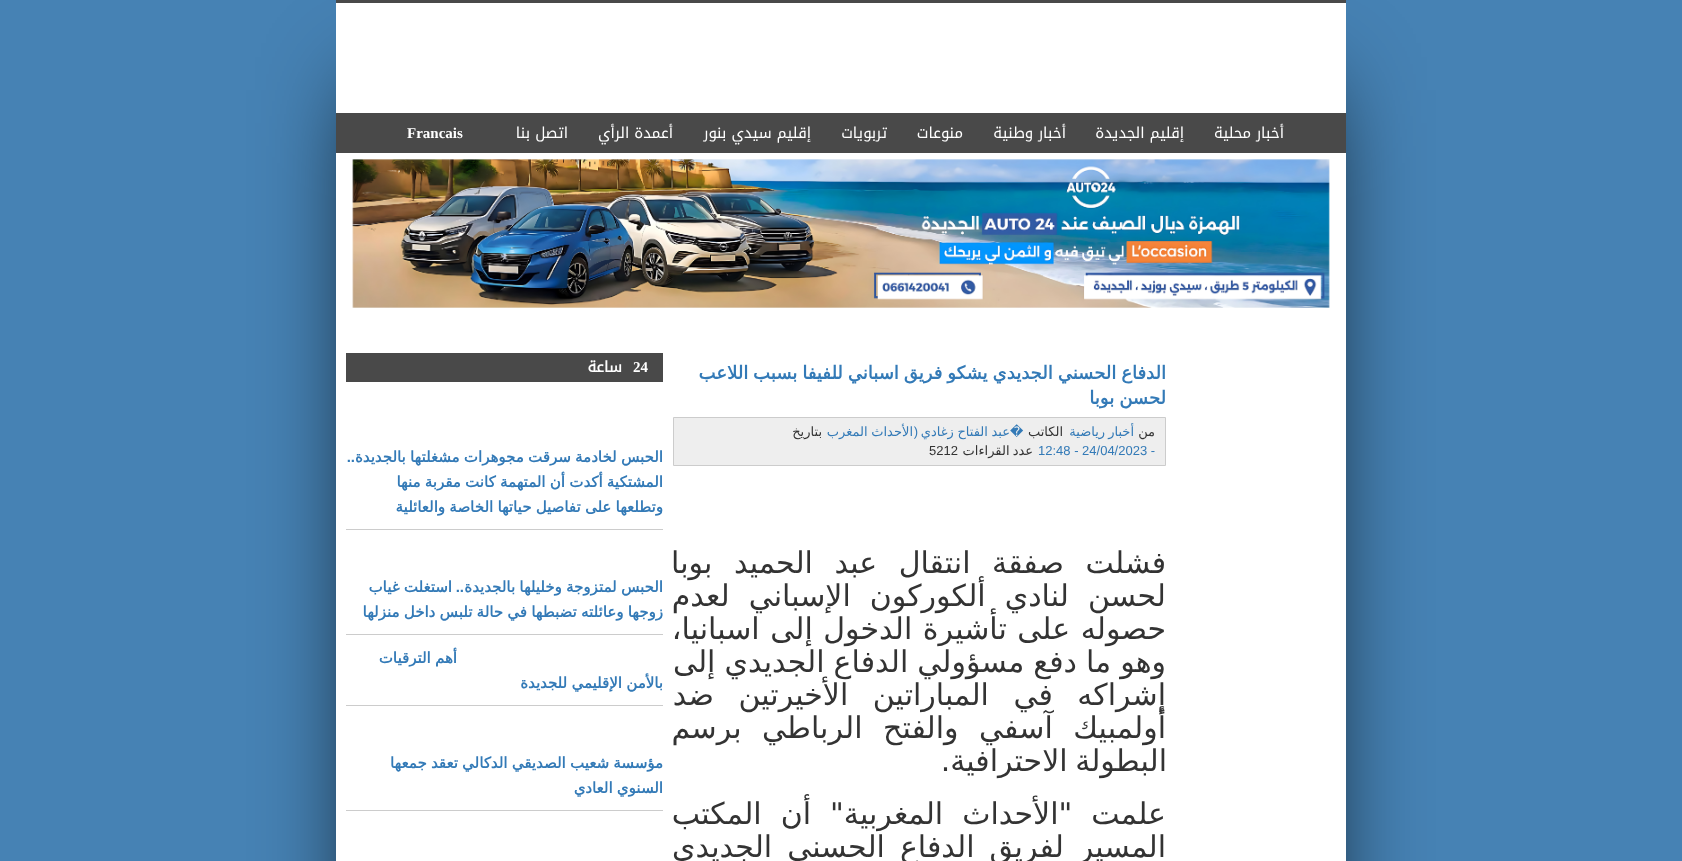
<!DOCTYPE html>
<meta charset="utf-8">
<style>body { margin: 0 } canvas { display: block }</style>
<canvas id="canvas" width="1682" height="861"></canvas>
<img id="img1" src="images/1.png" hidden>
<script>
window.onload = function () {
    const canvas = document.getElementById('canvas');
    const context = canvas.getContext('2d');
    context.miterLimit = 4;
    context.fontKerning = 'normal';

    context.fillStyle = 'rgb(70, 130, 180)';
    context.fillRect(0, 0, 1682, 861);
    context.fillStyle = 'rgb(0, 0, 0)';
    context.filter = 'blur(50px)';
    context.beginPath();
    context.rect(486, 90, 830, 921);
    context.fill();
    context.filter = 'none';
    context.filter = 'blur(50px)';
    context.beginPath();
    context.rect(366, 90, 830, 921);
    context.fill();
    context.filter = 'none';
    context.fillStyle = 'rgb(255, 255, 255)';
    context.fillRect(336, 3, 1010, 858);
    context.fillStyle = 'rgb(73, 73, 73)';
    context.fillRect(336, 0, 1010, 3);
    context.fillRect(336, 113, 1010, 40);
    context.drawImage(document.getElementById('img1'), 352, 159, 978, 149);
    context.fillStyle = 'rgb(238, 238, 238)';
    context.beginPath();
    context.rect(673.5, 417.5, 492, 48);
    context.fill();
    context.strokeStyle = 'rgb(204, 204, 204)';
    context.stroke();
    context.fillStyle = 'rgb(73, 73, 73)';
    context.fillRect(346, 353, 317, 29);
    context.fillStyle = 'rgb(204, 204, 204)';
    context.fillRect(346, 529, 317, 1);
    context.fillRect(346, 634, 317, 1);
    context.fillRect(346, 705, 317, 1);
    context.fillRect(346, 810, 317, 1);
    context.direction = 'rtl';
    context.font = '15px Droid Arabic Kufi';
    context.fillStyle = 'rgb(255, 255, 255)';
    context.fillText('أخبار محلية', 1284, 138);
    context.fillText('إقليم الجديدة', 1184, 138);
    context.fillText('أخبار وطنية', 1066, 138);
    context.fillText('منوعات', 963, 138);
    context.fillText('تربويات', 887, 138);
    context.fillText('إقليم سيدي بنور', 811, 138);
    context.fillText('أعمدة الرأي', 673, 138);
    context.fillText('اتصل بنا', 568, 138);
    context.direction = 'ltr';
    context.font = 'bold 15px Liberation Serif';
    context.fillText('Francais', 407, 138);
    context.wordSpacing = '-0.75px';
    context.direction = 'rtl';
    context.font = 'bold 18px DejaVu Sans';
    context.fillStyle = 'rgb(51, 122, 183)';
    context.fillText('الدفاع الحسني الجديدي يشكو فريق اسباني للفيفا بسبب اللاعب', 1166, 379);
    context.fillText('لحسن بوبا', 1166, 404);
    context.wordSpacing = '0px';
    context.font = '13px DejaVu Sans';
    context.fillStyle = 'rgb(51, 51, 51)';
    context.fillText('من', 1155, 436);
    context.wordSpacing = '-1px';
    context.fillStyle = 'rgb(51, 122, 183)';
    context.fillText('أخبار رياضية', 1134, 436);
    context.wordSpacing = '0px';
    context.fillStyle = 'rgb(51, 51, 51)';
    context.fillText('الكاتب', 1063, 436);
    context.direction = 'ltr';
    context.fillStyle = 'rgb(51, 122, 183)';
    context.fillText('�', 1010, 436);
    context.wordSpacing = '-0.5px';
    context.direction = 'rtl';
    context.fillText('عبد الفتاح زغادي', 1010, 436);
    context.wordSpacing = '0px';
    context.font = '13px Liberation Sans';
    context.fillText('(', 918, 436);
    context.wordSpacing = '-0.5px';
    context.font = '13px DejaVu Sans';
    context.fillText('الأحداث المغرب', 913, 436);
    context.wordSpacing = '0px';
    context.fillStyle = 'rgb(51, 51, 51)';
    context.fillText('بتاريخ', 822, 436);
    context.direction = 'ltr';
    context.font = '13px Liberation Sans';
    context.fillStyle = 'rgb(51, 122, 183)';
    context.fillText('12:48 - 24/04/2023 -', 1038, 455);
    context.wordSpacing = '-1px';
    context.direction = 'rtl';
    context.font = '13px DejaVu Sans';
    context.fillStyle = 'rgb(51, 51, 51)';
    context.fillText('عدد القراءات', 1033, 455);
    context.wordSpacing = '0px';
    context.direction = 'ltr';
    context.font = '13px Liberation Sans';
    context.fillText('5212', 929, 455);
    context.wordSpacing = '12px';
    context.direction = 'rtl';
    context.font = '30px DejaVu Sans';
    context.fillText('فشلت صفقة انتقال عبد الحميد بوبا', 1166, 573);
    context.wordSpacing = '9.5px';
    context.fillText('لحسن لنادي ألكوركون الإسباني لعدم', 1166, 606);
    context.wordSpacing = '1px';
    context.fillText('حصوله على تأشيرة الدخول إلى اسبانيا،', 1166, 639);
    context.wordSpacing = '-0.5px';
    context.fillText('وهو ما دفع مسؤولي الدفاع الجديدي إلى', 1166, 672);
    context.wordSpacing = '15px';
    context.fillText('إشراكه في المباراتين الأخيرتين ضد', 1166, 705);
    context.wordSpacing = '11px';
    context.fillText('أولمبيك آسفي والفتح الرباطي برسم', 1166, 738);
    context.wordSpacing = '-2px';
    context.fillText('البطولة الاحترافية.', 1167, 771);
    context.wordSpacing = '9.5px';
    context.fillText('علمت "الأحداث المغربية" أن المكتب', 1166, 824);
    context.wordSpacing = '5.5px';
    context.fillText('المسير لفريق الدفاع الحسني الجديدي', 1166, 857);
    context.wordSpacing = '0px';
    context.direction = 'ltr';
    context.font = 'bold 15px Liberation Serif';
    context.fillStyle = 'rgb(255, 255, 255)';
    context.fillText('24', 633, 372);
    context.direction = 'rtl';
    context.font = 'bold 15px Droid Arabic Kufi';
    context.fillText('ساعة', 622, 372);
    context.wordSpacing = '-0.5px';
    context.font = 'bold 15px DejaVu Sans';
    context.fillStyle = 'rgb(51, 122, 183)';
    context.fillText('الحبس لخادمة سرقت مجوهرات مشغلتها بالجديدة', 663, 462);
    context.wordSpacing = '0px';
    context.font = 'bold 15px Liberation Sans';
    context.fillText('..', 355, 462);
    context.wordSpacing = '-0.5px';
    context.font = 'bold 15px DejaVu Sans';
    context.fillText('المشتكية أكدت أن المتهمة كانت مقربة منها', 663, 487);
    context.fillText('وتطلعها على تفاصيل حياتها الخاصة والعائلية', 663, 512);
    context.fillText('الحبس لمتزوجة وخليلها بالجديدة', 663, 592);
    context.wordSpacing = '0px';
    context.font = 'bold 15px Liberation Sans';
    context.fillText('..', 464, 592);
    context.wordSpacing = '-0.5px';
    context.font = 'bold 15px DejaVu Sans';
    context.fillText('استغلت غياب', 452, 592);
    context.fillText('زوجها وعائلته تضبطها في حالة تلبس داخل منزلها', 663, 617);
    context.fillText('أهم الترقيات', 457, 663);
    context.fillText('بالأمن الإقليمي للجديدة', 663, 688);
    context.fillText('مؤسسة شعيب الصديقي الدكالي تعقد جمعها', 663, 768);
    context.fillText('السنوي العادي', 663, 793);
};
</script>
